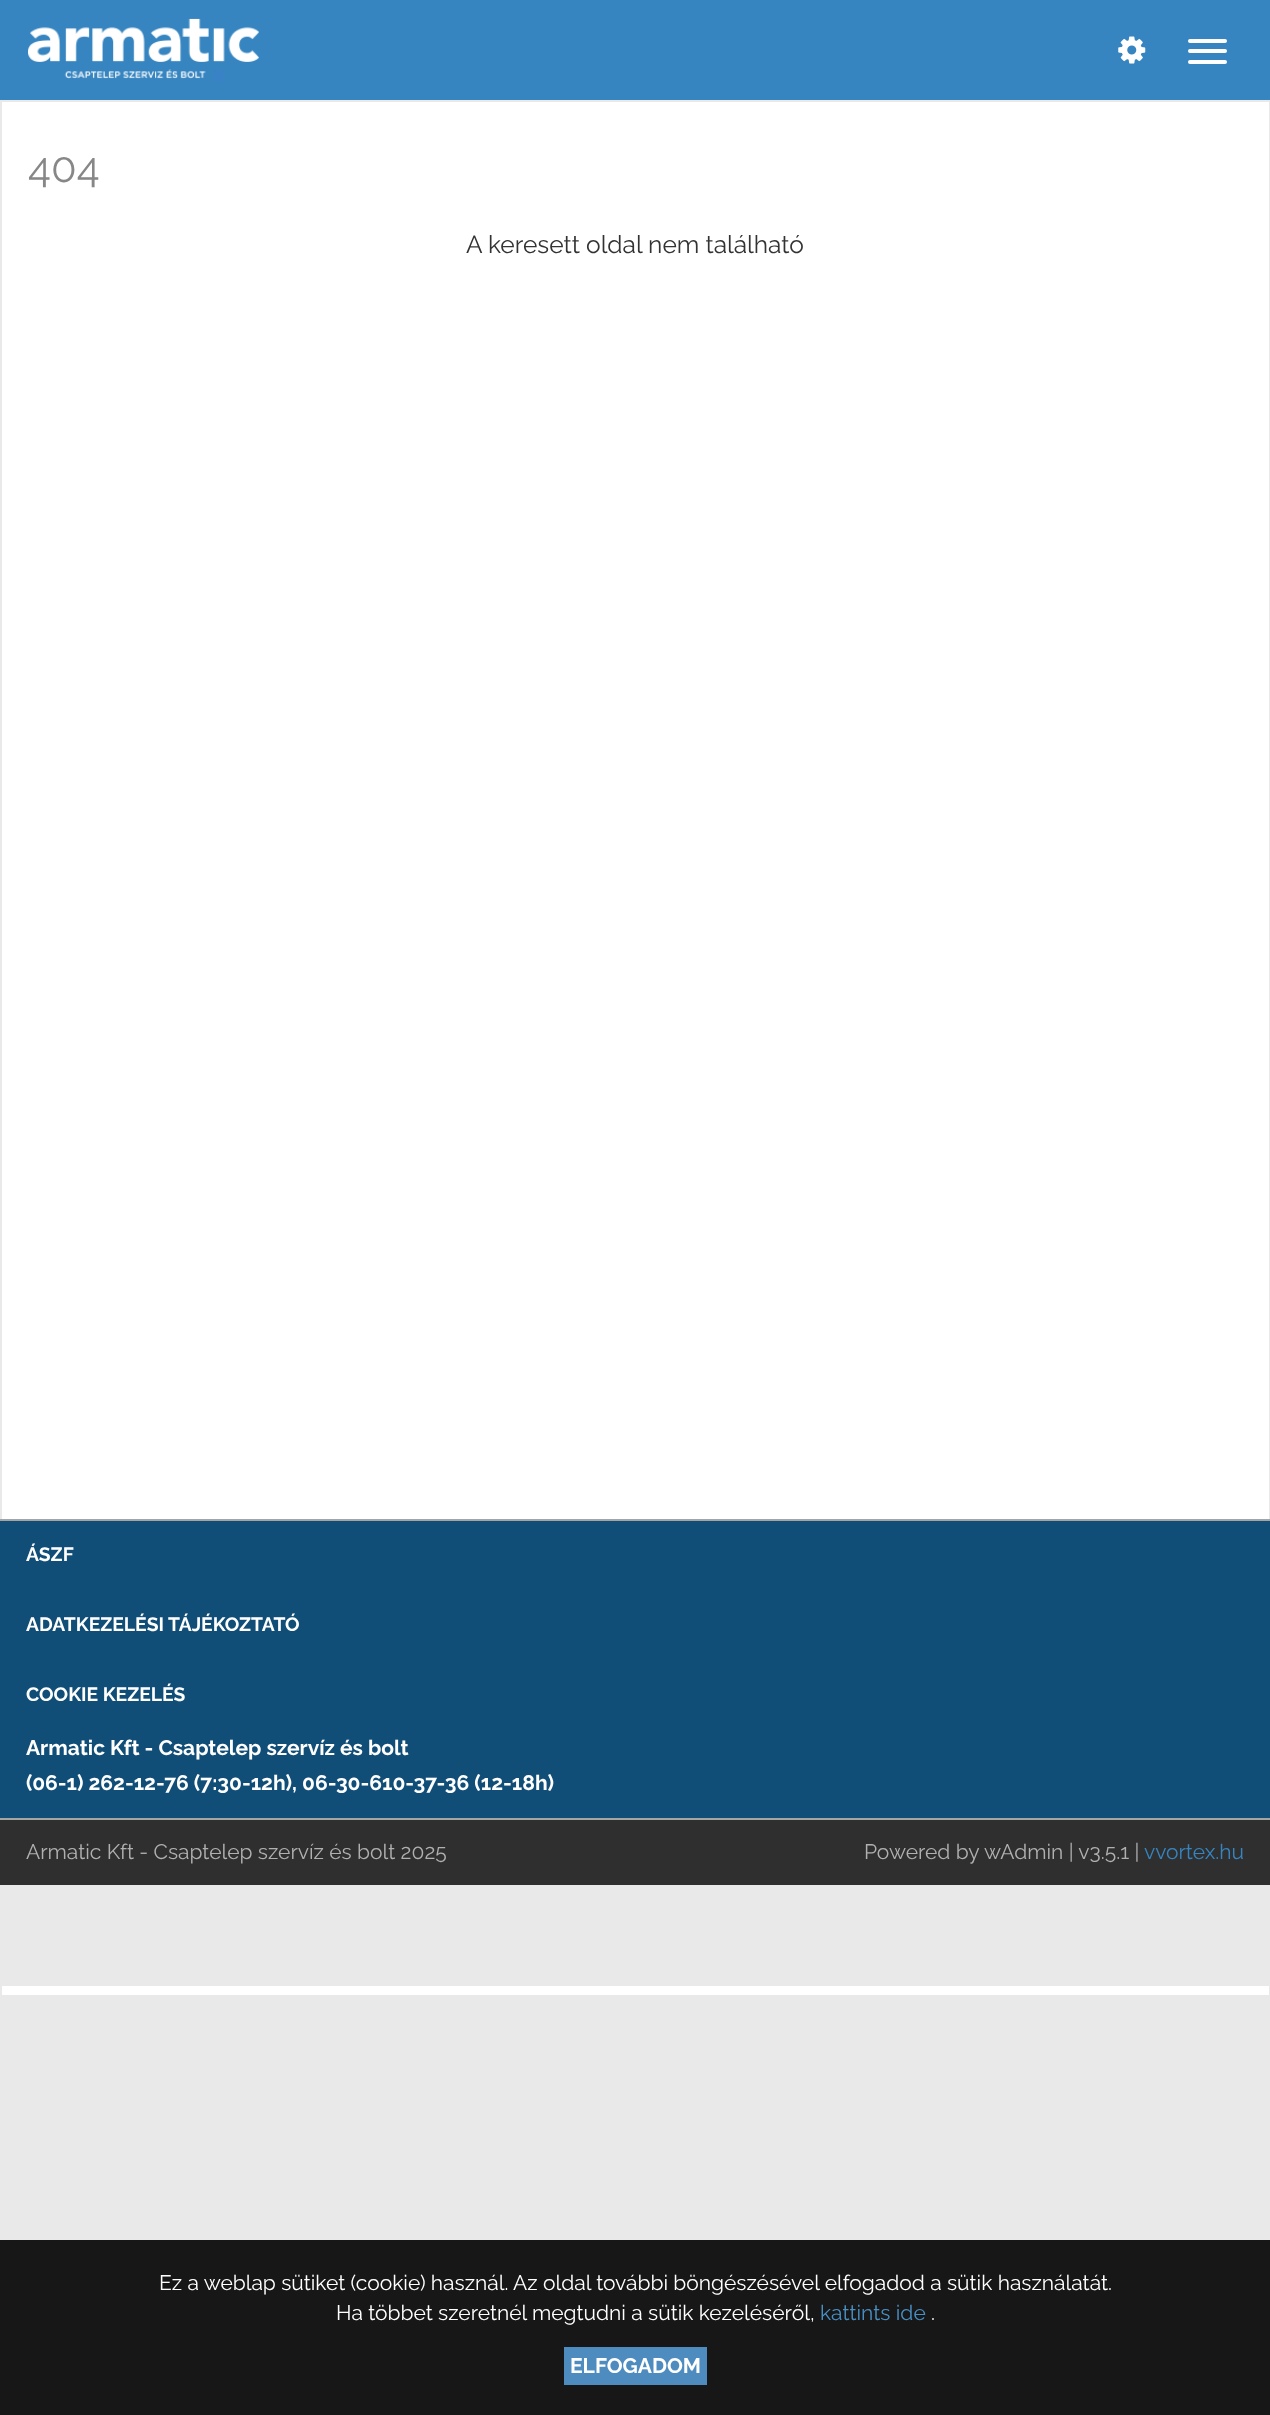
<!DOCTYPE html>
<meta charset="utf-8">
<style>body { margin: 0 } canvas { display: block }</style>
<canvas id="canvas" width="1270" height="2415"></canvas>
<img id="img1" src="images/1.png" hidden>
<img id="img2" src="images/2.png" hidden>
<script>
window.onload = function () {
    const canvas = document.getElementById('canvas');
    const context = canvas.getContext('2d');
    context.miterLimit = 4;
    context.fontKerning = 'normal';

    context.fillStyle = 'rgb(233, 233, 233)';
    context.fillRect(0, 0, 1270, 2415);
    context.fillStyle = 'rgb(54, 133, 192)';
    context.fillRect(0, 0, 1270, 100);
    context.drawImage(document.getElementById('img1'), 28, 18, 231, 64);
    context.drawImage(document.getElementById('img2'), 1118, 36, 28, 28);
    context.fillStyle = 'rgb(255, 255, 255)';
    context.beginPath();
    context.roundRect(1188, 39, 39, 4, 2);
    context.fill();
    context.beginPath();
    context.roundRect(1188, 49, 39, 4, 2);
    context.fill();
    context.beginPath();
    context.roundRect(1188, 60, 39, 4, 2);
    context.fill();
    context.fillRect(2, 102, 1267, 1417);
    context.fillStyle = 'rgb(16, 77, 119)';
    context.fillRect(0, 1521, 1270, 297);
    context.fillStyle = 'rgb(165, 165, 165)';
    context.fillRect(0, 1519, 1270, 2);
    context.fillRect(0, 1818, 1270, 2);
    context.fillStyle = 'rgb(47, 47, 47)';
    context.fillRect(0, 1820, 1270, 65);
    context.fillStyle = 'rgb(255, 255, 255)';
    context.fillRect(2, 1986, 1267, 9);
    context.fillStyle = 'rgb(23, 23, 23)';
    context.fillRect(0, 2240, 1270, 175);
    context.fillStyle = 'rgb(78, 139, 191)';
    context.fillRect(564, 2347, 143, 38);
    context.font = '42px Raleway';
    context.fillStyle = 'rgb(135, 135, 135)';
    context.fillText('404', 28, 182);
    context.font = '24.5px Raleway';
    context.fillStyle = 'rgb(51, 51, 51)';
    context.fillText('A keresett oldal nem található', 466, 253);
    context.font = 'bold 19.25px Raleway';
    context.fillStyle = 'rgb(255, 255, 255)';
    context.fillText('ÁSZF', 26, 1561);
    context.fillText('ADATKEZELÉSI TÁJÉKOZTATÓ', 26, 1631);
    context.fillText('COOKIE KEZELÉS', 26, 1701);
    context.font = 'bold 21px Raleway';
    context.fillText('Armatic Kft - Csaptelep szervíz és bolt', 26, 1755);
    context.fillText('(06-1) 262-12-76 (7:30-12h), 06-30-610-37-36 (12-18h)', 26, 1790);
    context.font = '21px Raleway';
    context.fillStyle = 'rgb(176, 176, 176)';
    context.fillText('Armatic Kft - Csaptelep szervíz és bolt 2025', 26, 1859);
    context.fillText('Powered by wAdmin | v3.5.1 |', 864, 1859);
    context.fillStyle = 'rgb(54, 133, 192)';
    context.fillText('vvortex.hu', 1144, 1859);
    context.fillStyle = 'rgb(255, 255, 255)';
    context.fillText('Ez a weblap sütiket (cookie) használ. Az oldal további böngészésével elfogadod a sütik használatát.', 159, 2290);
    context.fillText('Ha többet szeretnél megtudni a sütik kezeléséről,', 336, 2320);
    context.fillStyle = 'rgb(72, 143, 196)';
    context.fillText('kattints ide', 820, 2320);
    context.fillStyle = 'rgb(255, 255, 255)';
    context.fillText('.', 931, 2320);
    context.font = 'bold 21px Raleway';
    context.fillText('ELFOGADOM', 570, 2373);
};
</script>
